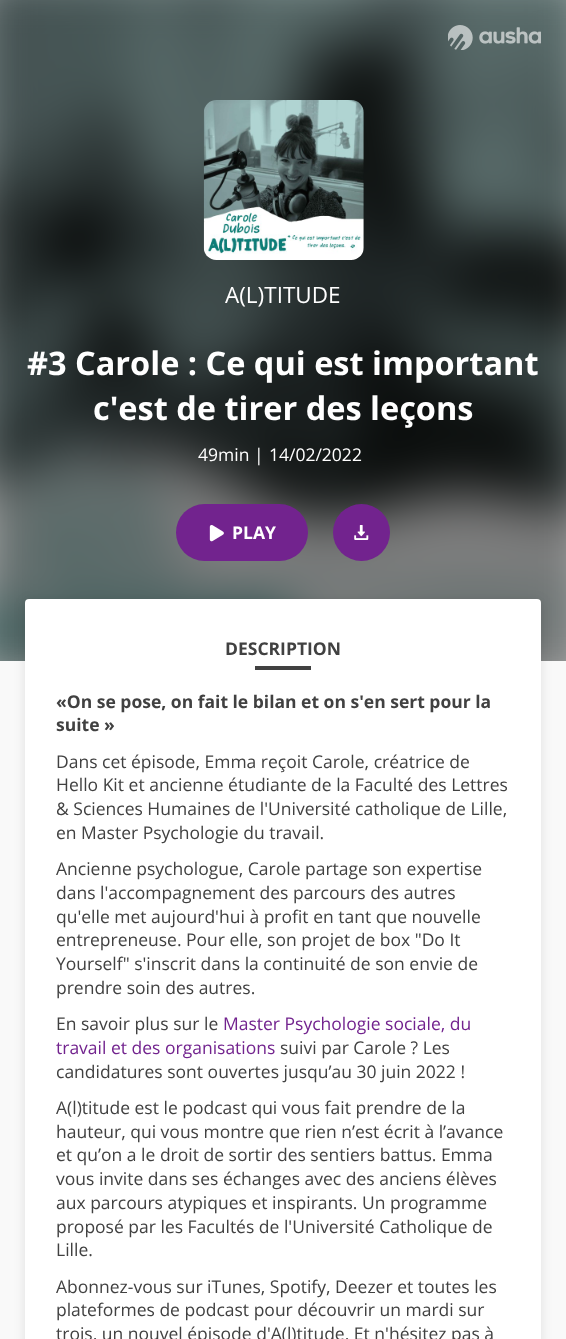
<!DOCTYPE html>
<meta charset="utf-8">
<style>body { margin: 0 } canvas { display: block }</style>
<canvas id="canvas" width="566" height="1339"></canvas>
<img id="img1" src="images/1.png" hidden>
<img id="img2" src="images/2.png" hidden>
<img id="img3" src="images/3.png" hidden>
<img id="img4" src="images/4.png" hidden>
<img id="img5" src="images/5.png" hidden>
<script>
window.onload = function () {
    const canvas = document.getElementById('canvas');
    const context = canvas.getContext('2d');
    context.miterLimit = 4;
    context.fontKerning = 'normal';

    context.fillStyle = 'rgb(255, 255, 255)';
    context.fillRect(0, 0, 566, 1339);
    context.drawImage(document.getElementById('img1'), 0, 0, 566, 661);
    context.fillStyle = 'rgba(0, 0, 0, 0.5)';
    context.filter = 'blur(25px)';
    context.beginPath();
    context.rect(-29, -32, 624, 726);
    context.fill();
    context.filter = 'none';
    context.drawImage(document.getElementById('img2'), 448, 25, 93, 25);
    context.drawImage(document.getElementById('img3'), 203, 100, 161, 160);
    context.fillStyle = 'rgb(114, 35, 142)';
    context.beginPath();
    context.roundRect(176, 504, 132, 57, 28.5);
    context.fill();
    context.drawImage(document.getElementById('img4'), 209, 525, 15, 17);
    context.beginPath();
    context.arc(361.5, 532.5, 28.5, 0, 2 * Math.PI);
    context.fill();
    context.drawImage(document.getElementById('img5'), 354, 525, 15, 15);
    context.fillStyle = 'rgb(249, 249, 249)';
    context.fillRect(0, 661, 566, 678);
    context.fillStyle = 'rgba(0, 0, 0, 0.1)';
    context.filter = 'blur(6px)';
    context.beginPath();
    context.roundRect(25, 601, 516, 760, 4);
    context.fill();
    context.filter = 'none';
    context.fillStyle = 'rgb(255, 255, 255)';
    context.beginPath();
    context.roundRect(25, 599, 516, 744, 4);
    context.fill();
    context.fillStyle = 'rgb(65, 65, 65)';
    context.fillRect(255, 666, 56, 4);
    context.font = '22.5px Open Sans';
    context.fillStyle = 'rgb(255, 255, 255)';
    context.fillText('A(L)TITUDE', 225, 303);
    context.font = 'bold 32.5px Open Sans';
    context.fillText('#3 Carole : Ce qui est important', 27, 375);
    context.fillText('c\'est de tirer des leçons', 93, 420);
    context.font = '17.5px Open Sans';
    context.fillText('49min |', 198, 461);
    context.fillText('14/02/2022', 269, 461);
    context.font = 'bold 17.5px Open Sans';
    context.fillText('PLAY', 232, 539);
    context.fillStyle = 'rgb(65, 65, 65)';
    context.fillText('DESCRIPTION', 225, 655);
    context.fillText('«On se pose, on fait le bilan et on s\'en sert pour la', 56, 708);
    context.fillText('suite »', 56, 731);
    context.font = '17.5px Open Sans';
    context.fillText('Dans cet épisode, Emma reçoit Carole, créatrice de', 56, 768);
    context.fillText('Hello Kit et ancienne étudiante de la Faculté des Lettres', 56, 791);
    context.fillText('& Sciences Humaines de l\'Université catholique de Lille,', 56, 815);
    context.fillText('en Master Psychologie du travail.', 56, 839);
    context.fillText('Ancienne psychologue, Carole partage son expertise', 56, 875);
    context.fillText('dans l\'accompagnement des parcours des autres', 56, 899);
    context.fillText('qu\'elle met aujourd\'hui à profit en tant que nouvelle', 56, 923);
    context.fillText('entrepreneuse. Pour elle, son projet de box "Do It', 56, 946);
    context.fillText('Yourself" s\'inscrit dans la continuité de son envie de', 56, 970);
    context.fillText('prendre soin des autres.', 56, 994);
    context.fillText('En savoir plus sur le', 56, 1030);
    context.fillStyle = 'rgb(114, 35, 142)';
    context.fillText('Master Psychologie sociale, du', 223, 1030);
    context.fillText('travail et des organisations', 56, 1054);
    context.fillStyle = 'rgb(65, 65, 65)';
    context.fillText('suivi par Carole ? Les', 280, 1054);
    context.fillText('candidatures sont ouvertes jusqu’au 30 juin 2022 !', 56, 1078);
    context.fillText('A(l)titude est le podcast qui vous fait prendre de la', 56, 1114);
    context.fillText('hauteur, qui vous montre que rien n’est écrit à l’avance', 56, 1138);
    context.fillText('et qu’on a le droit de sortir des sentiers battus. Emma', 56, 1161);
    context.fillText('vous invite dans ses échanges avec des anciens élèves', 56, 1185);
    context.fillText('aux parcours atypiques et inspirants. Un programme', 56, 1209);
    context.fillText('proposé par les Facultés de l\'Université Catholique de', 56, 1233);
    context.fillText('Lille.', 56, 1256);
    context.fillText('Abonnez-vous sur iTunes, Spotify, Deezer et toutes les', 56, 1293);
    context.fillText('plateformes de podcast pour découvrir un mardi sur', 56, 1316);
    context.fillText('trois, un nouvel épisode d\'A(l)titude. Et n\'hésitez pas à', 56, 1340);
};
</script>
